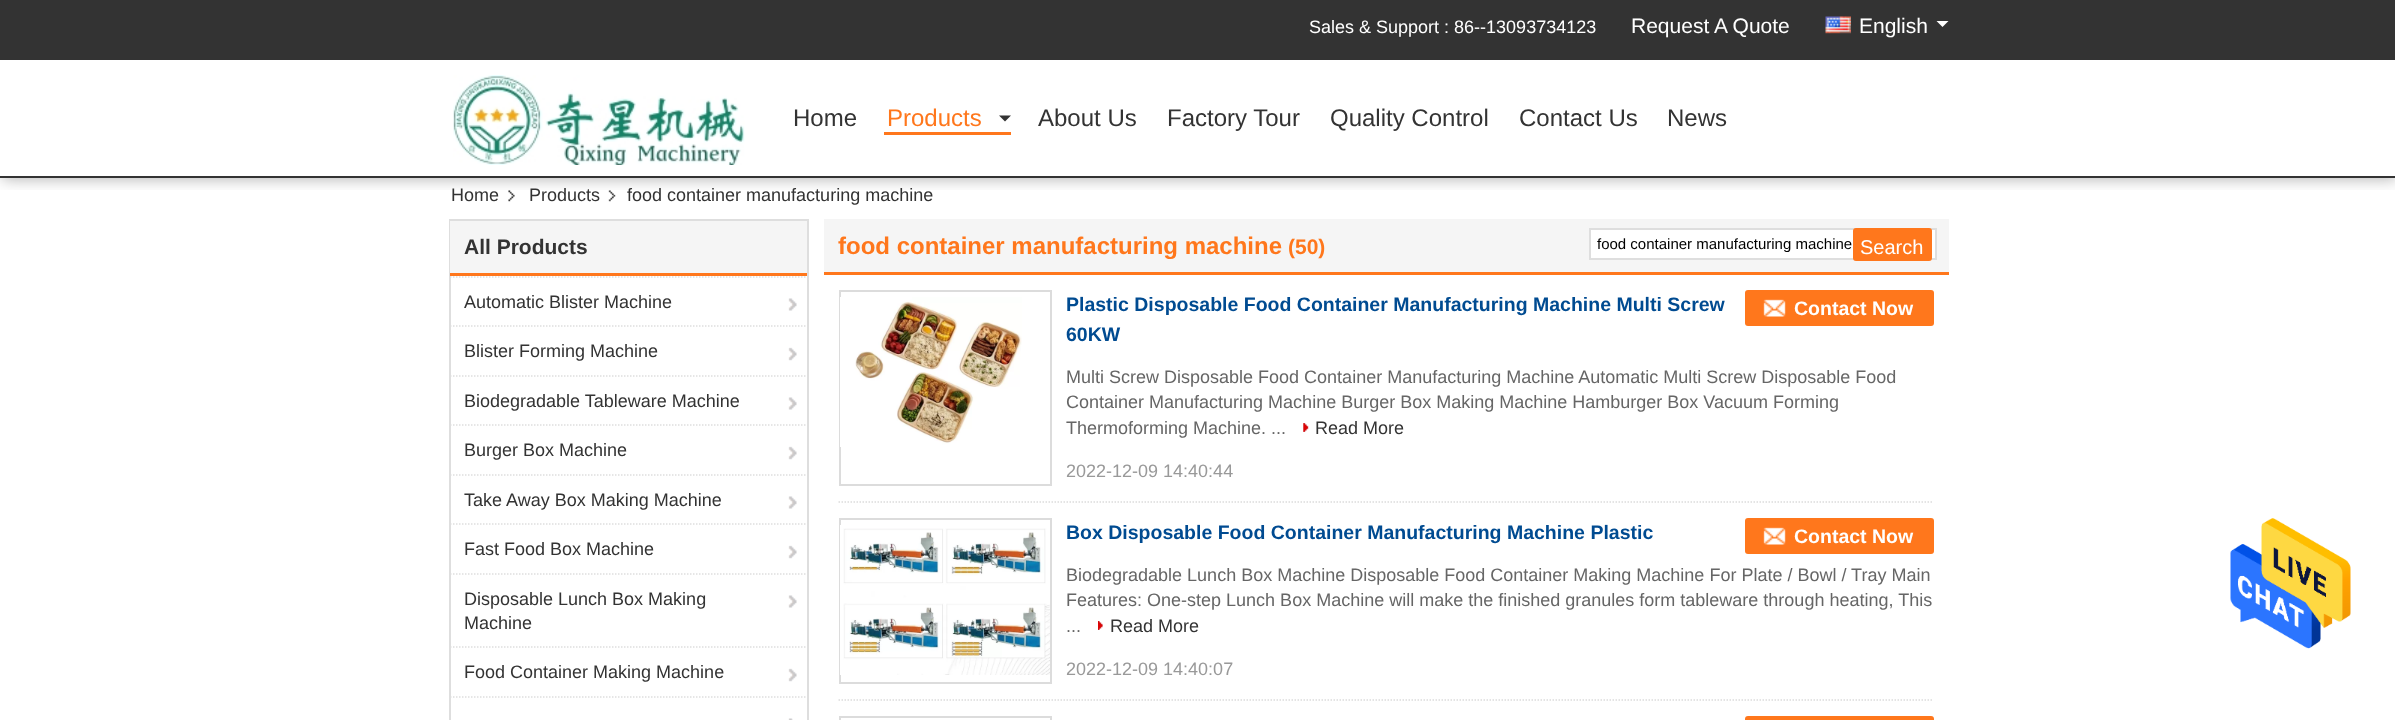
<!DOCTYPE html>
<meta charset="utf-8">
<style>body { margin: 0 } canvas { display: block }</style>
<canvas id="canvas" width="2395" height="720"></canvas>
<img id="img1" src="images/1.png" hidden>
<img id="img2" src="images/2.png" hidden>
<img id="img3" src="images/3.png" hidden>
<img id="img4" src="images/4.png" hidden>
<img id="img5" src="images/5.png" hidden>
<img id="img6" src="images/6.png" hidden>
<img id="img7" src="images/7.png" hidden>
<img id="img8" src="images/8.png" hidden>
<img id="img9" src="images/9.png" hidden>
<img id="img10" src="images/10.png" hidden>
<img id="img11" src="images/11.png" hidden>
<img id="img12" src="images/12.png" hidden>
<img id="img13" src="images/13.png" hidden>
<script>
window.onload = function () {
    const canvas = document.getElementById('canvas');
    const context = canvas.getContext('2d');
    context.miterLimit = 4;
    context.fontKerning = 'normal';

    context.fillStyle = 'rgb(255, 255, 255)';
    context.fillRect(0, 0, 2395, 720);
    context.save();
    context.beginPath();
    context.rect(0, 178, 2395, 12);
    context.clip();
    context.fillStyle = 'rgba(0, 0, 0, 0.3)';
    context.filter = 'blur(7.5px)';
    context.beginPath();
    context.rect(2, 2, 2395, 177);
    context.fill();
    context.filter = 'none';
    context.restore();
    context.fillStyle = 'rgb(51, 51, 51)';
    context.fillRect(0, 176, 2395, 2);
    context.fillRect(0, 0, 2395, 60);
    context.drawImage(document.getElementById('img1'), 1825, 16, 26, 18);
    context.fillStyle = 'rgb(255, 255, 255)';
    context.beginPath();
    context.moveTo(1936.5, 21);
    context.lineTo(1948.5, 21);
    context.lineTo(1942.5, 27);
    context.closePath();
    context.fill();
    context.drawImage(document.getElementById('img2'), 453, 75, 292, 90);
    context.fillStyle = 'rgb(255, 119, 28)';
    context.fillRect(884, 132, 127, 3);
    context.fillStyle = 'rgb(51, 51, 51)';
    context.beginPath();
    context.moveTo(999, 115.5);
    context.lineTo(1011, 115.5);
    context.lineTo(1005, 121.5);
    context.closePath();
    context.fill();
    context.drawImage(document.getElementById('img3'), 508, 190, 7, 12);
    context.drawImage(document.getElementById('img4'), 608, 190, 8, 12);
    context.strokeStyle = 'rgb(222, 222, 222)';
    context.lineWidth = 2;
    context.strokeRect(450, 220, 358, 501);
    context.fillStyle = 'rgb(245, 245, 245)';
    context.fillRect(450, 221, 357, 52);
    context.fillStyle = 'rgb(255, 119, 28)';
    context.fillRect(450, 273, 357, 3);
    context.drawImage(document.getElementById('img5'), 788, 298, 9, 13);
    context.beginPath();
    context.moveTo(450, 277);
    context.lineTo(807, 277);
    context.lineWidth = 1.5;
    context.setLineDash([1.5, 1.5]);
    context.stroke();
    context.drawImage(document.getElementById('img6'), 788, 347, 9, 14);
    context.beginPath();
    context.moveTo(450, 326);
    context.lineTo(807, 326);
    context.stroke();
    context.drawImage(document.getElementById('img5'), 788, 397, 9, 13);
    context.beginPath();
    context.moveTo(450, 376);
    context.lineTo(807, 376);
    context.stroke();
    context.drawImage(document.getElementById('img6'), 788, 446, 9, 14);
    context.beginPath();
    context.moveTo(450, 425);
    context.lineTo(807, 425);
    context.stroke();
    context.drawImage(document.getElementById('img5'), 788, 496, 9, 13);
    context.beginPath();
    context.moveTo(450, 475);
    context.lineTo(807, 475);
    context.stroke();
    context.drawImage(document.getElementById('img6'), 788, 545, 9, 14);
    context.beginPath();
    context.moveTo(450, 524);
    context.lineTo(807, 524);
    context.stroke();
    context.drawImage(document.getElementById('img5'), 788, 595, 9, 13);
    context.beginPath();
    context.moveTo(450, 574);
    context.lineTo(807, 574);
    context.stroke();
    context.drawImage(document.getElementById('img6'), 788, 668, 9, 14);
    context.beginPath();
    context.moveTo(450, 647);
    context.lineTo(807, 647);
    context.stroke();
    context.drawImage(document.getElementById('img7'), 788, 718, 5, 2);
    context.beginPath();
    context.moveTo(450, 697);
    context.lineTo(807, 697);
    context.stroke();
    context.fillStyle = 'rgb(245, 245, 245)';
    context.fillRect(824, 219, 1125, 53);
    context.fillStyle = 'rgb(255, 119, 28)';
    context.fillRect(824, 272, 1125, 3);
    context.fillStyle = 'rgb(255, 255, 255)';
    context.beginPath();
    context.rect(1590, 229, 346, 30);
    context.fill();
    context.lineWidth = 2;
    context.setLineDash([]);
    context.stroke();
    context.fillStyle = 'rgb(255, 119, 28)';
    context.beginPath();
    context.roundRect(1853, 228, 79, 33, 3);
    context.fill();
    context.beginPath();
    context.moveTo(838.5, 502);
    context.lineTo(1933.5, 502);
    context.strokeStyle = 'rgb(220, 220, 220)';
    context.lineWidth = 1.5;
    context.setLineDash([1.5, 1.5]);
    context.stroke();
    context.lineWidth = 2;
    context.setLineDash([]);
    context.strokeRect(840, 291, 211, 194);
    context.drawImage(document.getElementById('img8'), 840, 297, 182, 150);
    context.beginPath();
    context.roundRect(1745, 290, 189, 36, 3);
    context.fill();
    context.drawImage(document.getElementById('img9'), 1763, 299, 23, 18);
    context.drawImage(document.getElementById('img10'), 1303, 423, 6, 9);
    context.fillStyle = 'rgb(219, 5, 5)';
    context.beginPath();
    context.moveTo(1303.5, 432);
    context.lineTo(1303.5, 423);
    context.lineTo(1308, 427.5);
    context.closePath();
    context.fill();
    context.beginPath();
    context.moveTo(838.5, 700);
    context.lineTo(1933.5, 700);
    context.lineWidth = 1.5;
    context.setLineDash([1.5, 1.5]);
    context.stroke();
    context.lineWidth = 2;
    context.setLineDash([]);
    context.strokeRect(840, 519, 211, 164);
    context.drawImage(document.getElementById('img11'), 840, 525, 210, 150);
    context.fillStyle = 'rgb(255, 119, 28)';
    context.beginPath();
    context.roundRect(1745, 518, 189, 36, 3);
    context.fill();
    context.drawImage(document.getElementById('img9'), 1763, 527, 23, 18);
    context.drawImage(document.getElementById('img12'), 1098, 621, 5, 9);
    context.fillStyle = 'rgb(219, 5, 5)';
    context.beginPath();
    context.moveTo(1098, 630);
    context.lineTo(1098, 621);
    context.lineTo(1102.5, 625.5);
    context.closePath();
    context.fill();
    context.strokeRect(840, 717, 211, 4);
    context.fillStyle = 'rgb(255, 119, 28)';
    context.beginPath();
    context.roundRect(1745, 716, 189, 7, 3);
    context.fill();
    context.drawImage(document.getElementById('img13'), 2230, 518, 121, 131);
    context.font = '18px Liberation Sans';
    context.fillStyle = 'rgb(255, 255, 255)';
    context.fillText('Sales & Support : 86--13093734123', 1309, 33);
    context.font = '21px Liberation Sans';
    context.fillText('Request A Quote', 1631, 33);
    context.fillText('English', 1859, 33);
    context.font = '24px Liberation Sans';
    context.fillStyle = 'rgb(51, 51, 51)';
    context.fillText('Home', 793, 126);
    context.fillStyle = 'rgb(255, 119, 28)';
    context.fillText('Products', 887, 126);
    context.fillStyle = 'rgb(51, 51, 51)';
    context.fillText('About Us', 1038, 126);
    context.fillText('Factory Tour', 1167, 126);
    context.fillText('Quality Control', 1330, 126);
    context.fillText('Contact Us', 1519, 126);
    context.fillText('News', 1667, 126);
    context.font = '18px Liberation Sans';
    context.fillText('Home', 451, 201);
    context.fillText('Products', 529, 201);
    context.fillText('food container manufacturing machine', 627, 201);
    context.font = 'bold 21px Liberation Sans';
    context.fillText('All Products', 464, 254);
    context.font = '18px Liberation Sans';
    context.fillText('Automatic Blister Machine', 464, 308);
    context.fillText('Blister Forming Machine', 464, 357);
    context.fillText('Biodegradable Tableware Machine', 464, 407);
    context.fillText('Burger Box Machine', 464, 456);
    context.fillText('Take Away Box Making Machine', 464, 506);
    context.fillText('Fast Food Box Machine', 464, 555);
    context.fillText('Disposable Lunch Box Making', 464, 605);
    context.fillText('Machine', 464, 629);
    context.fillText('Food Container Making Machine', 464, 678);
    context.font = 'bold 24px Liberation Sans';
    context.fillStyle = 'rgb(255, 119, 28)';
    context.fillText('food container manufacturing machine', 838, 254);
    context.font = 'bold 21px Liberation Sans';
    context.fillText('(50)', 1288, 254);
    context.font = '15px Liberation Sans';
    context.fillStyle = 'rgb(0, 0, 0)';
    context.fillText('food container manufacturing machine', 1597, 249);
    context.font = '20px Liberation Sans';
    context.fillStyle = 'rgb(255, 255, 255)';
    context.fillText('Search', 1860, 254);
    context.font = 'bold 19.5px Liberation Sans';
    context.fillStyle = 'rgb(0, 75, 145)';
    context.fillText('Plastic Disposable Food Container Manufacturing Machine Multi Screw', 1066, 311);
    context.fillStyle = 'rgb(255, 255, 255)';
    context.fillText('Contact Now', 1794, 315);
    context.fillStyle = 'rgb(0, 75, 145)';
    context.fillText('60KW', 1066, 341);
    context.font = '18px Liberation Sans';
    context.fillStyle = 'rgb(102, 102, 102)';
    context.fillText('Multi Screw Disposable Food Container Manufacturing Machine Automatic Multi Screw Disposable Food', 1066, 383);
    context.fillText('Container Manufacturing Machine Burger Box Making Machine Hamburger Box Vacuum Forming', 1066, 408);
    context.fillText('Thermoforming Machine. ...', 1066, 434);
    context.fillStyle = 'rgb(51, 51, 51)';
    context.fillText('Read More', 1315, 434);
    context.fillStyle = 'rgb(153, 153, 153)';
    context.fillText('2022-12-09 14:40:44', 1066, 477);
    context.font = 'bold 19.5px Liberation Sans';
    context.fillStyle = 'rgb(0, 75, 145)';
    context.fillText('Box Disposable Food Container Manufacturing Machine Plastic', 1066, 539);
    context.fillStyle = 'rgb(255, 255, 255)';
    context.fillText('Contact Now', 1794, 543);
    context.font = '18px Liberation Sans';
    context.fillStyle = 'rgb(102, 102, 102)';
    context.fillText('Biodegradable Lunch Box Machine Disposable Food Container Making Machine For Plate / Bowl / Tray Main', 1066, 581);
    context.fillText('Features: One-step Lunch Box Machine will make the finished granules form tableware through heating, This', 1066, 606);
    context.fillText('...', 1066, 632);
    context.fillStyle = 'rgb(51, 51, 51)';
    context.fillText('Read More', 1110, 632);
    context.fillStyle = 'rgb(153, 153, 153)';
    context.fillText('2022-12-09 14:40:07', 1066, 675);
};
</script>
